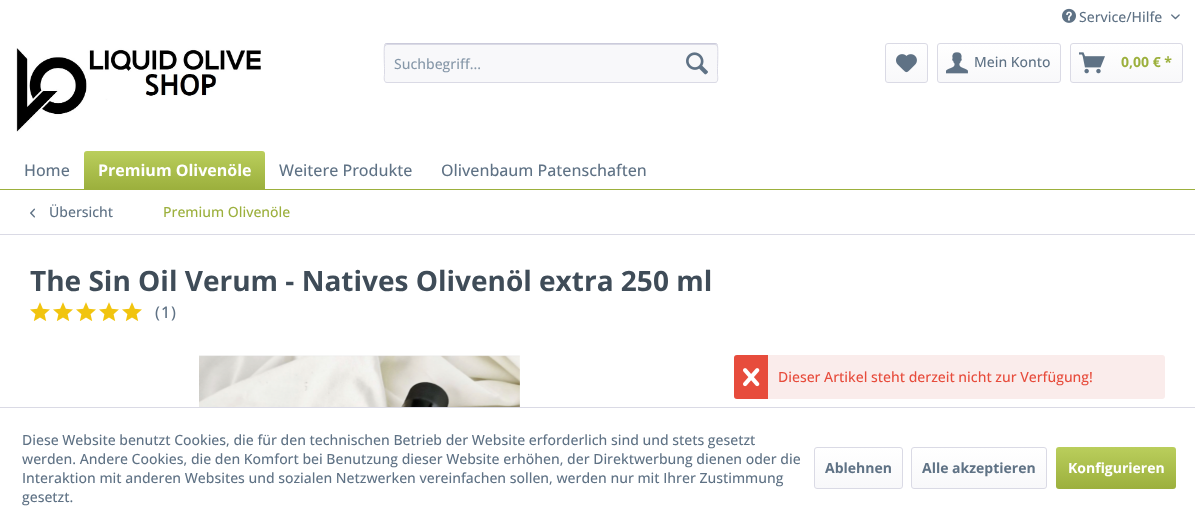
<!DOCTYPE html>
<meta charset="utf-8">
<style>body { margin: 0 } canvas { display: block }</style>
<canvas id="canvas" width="1195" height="528"></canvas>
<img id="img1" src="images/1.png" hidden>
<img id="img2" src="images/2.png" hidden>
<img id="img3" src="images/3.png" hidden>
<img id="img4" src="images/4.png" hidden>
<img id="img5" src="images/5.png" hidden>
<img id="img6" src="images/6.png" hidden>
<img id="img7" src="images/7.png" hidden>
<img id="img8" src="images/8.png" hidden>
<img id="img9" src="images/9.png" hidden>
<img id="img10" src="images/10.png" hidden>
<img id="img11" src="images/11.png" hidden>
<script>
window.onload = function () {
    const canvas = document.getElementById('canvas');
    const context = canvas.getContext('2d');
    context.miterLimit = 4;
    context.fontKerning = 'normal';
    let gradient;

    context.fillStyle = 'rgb(255, 255, 255)';
    context.fillRect(0, 0, 1195, 528);
    context.drawImage(document.getElementById('img1'), 1062, 8, 14, 15);
    context.drawImage(document.getElementById('img2'), 1171, 14, 9, 6);
    context.drawImage(document.getElementById('img3'), 16, 48, 245, 84);
    context.fillStyle = 'rgb(248, 248, 250)';
    context.beginPath();
    context.roundRect(384, 43, 334, 40, 3);
    context.fill();
    context.fillStyle = 'rgb(218, 218, 229)';
    context.beginPath();
    context.moveTo(387, 45);
    context.lineTo(715, 45);
    context.bezierCurveTo(716, 45, 717, 46, 717, 47);
    context.bezierCurveTo(717, 46, 717, 44, 715, 44);
    context.lineTo(387, 44);
    context.lineTo(385, 45);
    context.lineTo(385, 47);
    context.bezierCurveTo(385, 46, 386, 45, 387, 45);
    context.closePath();
    context.fill();
    context.beginPath();
    context.moveTo(385, 44);
    context.lineTo(387, 43.5);
    context.lineTo(715, 43.5);
    context.lineTo(717, 44);
    context.strokeStyle = 'rgb(203, 203, 219)';
    context.stroke();
    context.beginPath();
    context.moveTo(717, 44);
    context.bezierCurveTo(718.5, 46, 717.5, 65, 717.5, 68.5);
    context.lineTo(717.5, 74.5);
    context.bezierCurveTo(717.5, 76, 719, 82.5, 715, 82.5);
    context.lineTo(387, 82.5);
    context.bezierCurveTo(383, 82.5, 384.5, 76, 384.5, 74.5);
    context.lineTo(384.5, 68.5);
    context.bezierCurveTo(384.5, 65, 383.5, 46, 385, 44);
    context.strokeStyle = 'rgb(218, 218, 229)';
    context.stroke();
    context.drawImage(document.getElementById('img4'), 686, 52, 22, 23);
    gradient = context.createLinearGradient(907, 44, 907, 82);
    gradient.addColorStop(0, 'rgb(255, 255, 255)');
    gradient.addColorStop(1, 'rgb(248, 248, 250)');
    context.fillStyle = gradient;
    context.beginPath();
    context.roundRect(886, 44, 41, 38, 2);
    context.fill();
    context.beginPath();
    context.roundRect(885.5, 43.5, 42, 39, 2.5);
    context.stroke();
    context.drawImage(document.getElementById('img5'), 896, 54, 21, 19);
    gradient = context.createLinearGradient(999, 44, 999, 82);
    gradient.addColorStop(0, 'rgb(255, 255, 255)');
    gradient.addColorStop(1, 'rgb(248, 248, 250)');
    context.fillStyle = gradient;
    context.beginPath();
    context.roundRect(938, 44, 122, 38, 2);
    context.fill();
    context.beginPath();
    context.roundRect(937.5, 43.5, 123, 39, 2.5);
    context.stroke();
    context.drawImage(document.getElementById('img6'), 946, 52, 22, 22);
    gradient = context.createLinearGradient(1127, 44, 1127, 82);
    gradient.addColorStop(0, 'rgb(255, 255, 255)');
    gradient.addColorStop(1, 'rgb(248, 248, 250)');
    context.fillStyle = gradient;
    context.beginPath();
    context.roundRect(1071, 44, 111, 38, 2);
    context.fill();
    context.beginPath();
    context.roundRect(1070.5, 43.5, 112, 39, 2.5);
    context.stroke();
    context.drawImage(document.getElementById('img7'), 1079, 52, 26, 22);
    context.fillStyle = 'rgb(156, 176, 61)';
    context.fillRect(0, 189, 1195, 1);
    gradient = context.createLinearGradient(175, 151, 175, 189);
    gradient.addColorStop(0, 'rgb(186, 206, 92)');
    gradient.addColorStop(1, 'rgb(156, 176, 61)');
    context.fillStyle = gradient;
    context.beginPath();
    context.roundRect(84, 151, 181, 38, [3, 3, 0, 0]);
    context.fill();
    context.fillStyle = 'rgb(218, 218, 229)';
    context.fillRect(0, 234, 1195, 1);
    context.drawImage(document.getElementById('img8'), 30, 208, 5, 10);
    context.drawImage(document.getElementById('img9'), 30, 302, 20, 19);
    context.drawImage(document.getElementById('img9'), 53, 302, 20, 19);
    context.drawImage(document.getElementById('img9'), 76, 302, 20, 19);
    context.drawImage(document.getElementById('img9'), 99, 302, 20, 19);
    context.drawImage(document.getElementById('img9'), 122, 302, 20, 19);
    context.drawImage(document.getElementById('img10'), 199, 355, 321, 52);
    context.fillStyle = 'rgb(250, 236, 235)';
    context.beginPath();
    context.roundRect(734, 355, 431, 44, 3);
    context.fill();
    context.fillStyle = 'rgb(231, 76, 60)';
    context.beginPath();
    context.roundRect(734, 355, 34, 44, [3, 0, 0, 3]);
    context.fill();
    context.drawImage(document.getElementById('img11'), 743, 368, 17, 19);
    context.fillStyle = 'rgb(218, 218, 229)';
    context.fillRect(0, 407, 1195, 1);
    gradient = context.createLinearGradient(859, 448, 859, 488);
    gradient.addColorStop(0, 'rgb(255, 255, 255)');
    gradient.addColorStop(1, 'rgb(248, 248, 250)');
    context.fillStyle = gradient;
    context.beginPath();
    context.roundRect(815, 448, 87, 40, 2);
    context.fill();
    context.beginPath();
    context.roundRect(814.5, 447.5, 88, 41, 2.5);
    context.stroke();
    gradient = context.createLinearGradient(979, 448, 979, 488);
    gradient.addColorStop(0, 'rgb(255, 255, 255)');
    gradient.addColorStop(1, 'rgb(248, 248, 250)');
    context.fillStyle = gradient;
    context.beginPath();
    context.roundRect(912, 448, 134, 40, 2);
    context.fill();
    context.beginPath();
    context.roundRect(911.5, 447.5, 135, 41, 2.5);
    context.stroke();
    gradient = context.createLinearGradient(1116, 447, 1116, 489);
    gradient.addColorStop(0, 'rgb(186, 206, 92)');
    gradient.addColorStop(1, 'rgb(156, 176, 61)');
    context.fillStyle = gradient;
    context.beginPath();
    context.roundRect(1056, 447, 120, 42, 3);
    context.fill();
    context.font = '500 14px Open Sans';
    context.fillStyle = 'rgb(95, 114, 133)';
    context.fillText('Service/Hilfe', 1079, 22);
    context.fillStyle = 'rgb(135, 152, 169)';
    context.fillText('Suchbegriff...', 394, 69);
    context.fillStyle = 'rgb(95, 114, 133)';
    context.fillText('Mein Konto', 974, 67);
    context.font = 'bold 14px Open Sans';
    context.fillStyle = 'rgb(156, 176, 61)';
    context.fillText('0,00 € *', 1121, 67);
    context.font = '500 16px Open Sans';
    context.fillStyle = 'rgb(95, 114, 133)';
    context.fillText('Home', 24, 176);
    context.font = 'bold 16px Open Sans';
    context.fillStyle = 'rgb(255, 255, 255)';
    context.fillText('Premium Olivenöle', 98, 176);
    context.font = '500 16px Open Sans';
    context.fillStyle = 'rgb(95, 114, 133)';
    context.fillText('Weitere Produkte', 279, 176);
    context.fillText('Olivenbaum Patenschaften', 441, 176);
    context.font = '500 14px Open Sans';
    context.fillText('Übersicht', 49, 217);
    context.fillStyle = 'rgb(156, 176, 61)';
    context.fillText('Premium Olivenöle', 163, 217);
    context.font = 'bold 28px Open Sans';
    context.fillStyle = 'rgb(63, 76, 88)';
    context.fillText('The Sin Oil Verum - Natives Olivenöl extra 250 ml', 30, 291);
    context.letterSpacing = '1px';
    context.font = '500 16px Open Sans';
    context.fillStyle = 'rgb(95, 114, 133)';
    context.fillText('(1)', 155, 318);
    context.letterSpacing = '0px';
    context.font = '500 14px Open Sans';
    context.fillStyle = 'rgb(231, 76, 60)';
    context.fillText('Dieser Artikel steht derzeit nicht zur Verfügung!', 778, 382);
    context.fillStyle = 'rgb(95, 114, 133)';
    context.fillText('Diese Website benutzt Cookies, die für den technischen Betrieb der Website erforderlich sind und stets gesetzt', 22, 445);
    context.fillText('werden. Andere Cookies, die den Komfort bei Benutzung dieser Website erhöhen, der Direktwerbung dienen oder die', 22, 464);
    context.fillText('Interaktion mit anderen Websites und sozialen Netzwerken vereinfachen sollen, werden nur mit Ihrer Zustimmung', 22, 483);
    context.fillText('gesetzt.', 22, 502);
    context.font = 'bold 14px Open Sans';
    context.fillText('Ablehnen', 825, 473);
    context.fillText('Alle akzeptieren', 922, 473);
    context.fillStyle = 'rgb(255, 255, 255)';
    context.fillText('Konfigurieren', 1068, 473);
};
</script>
